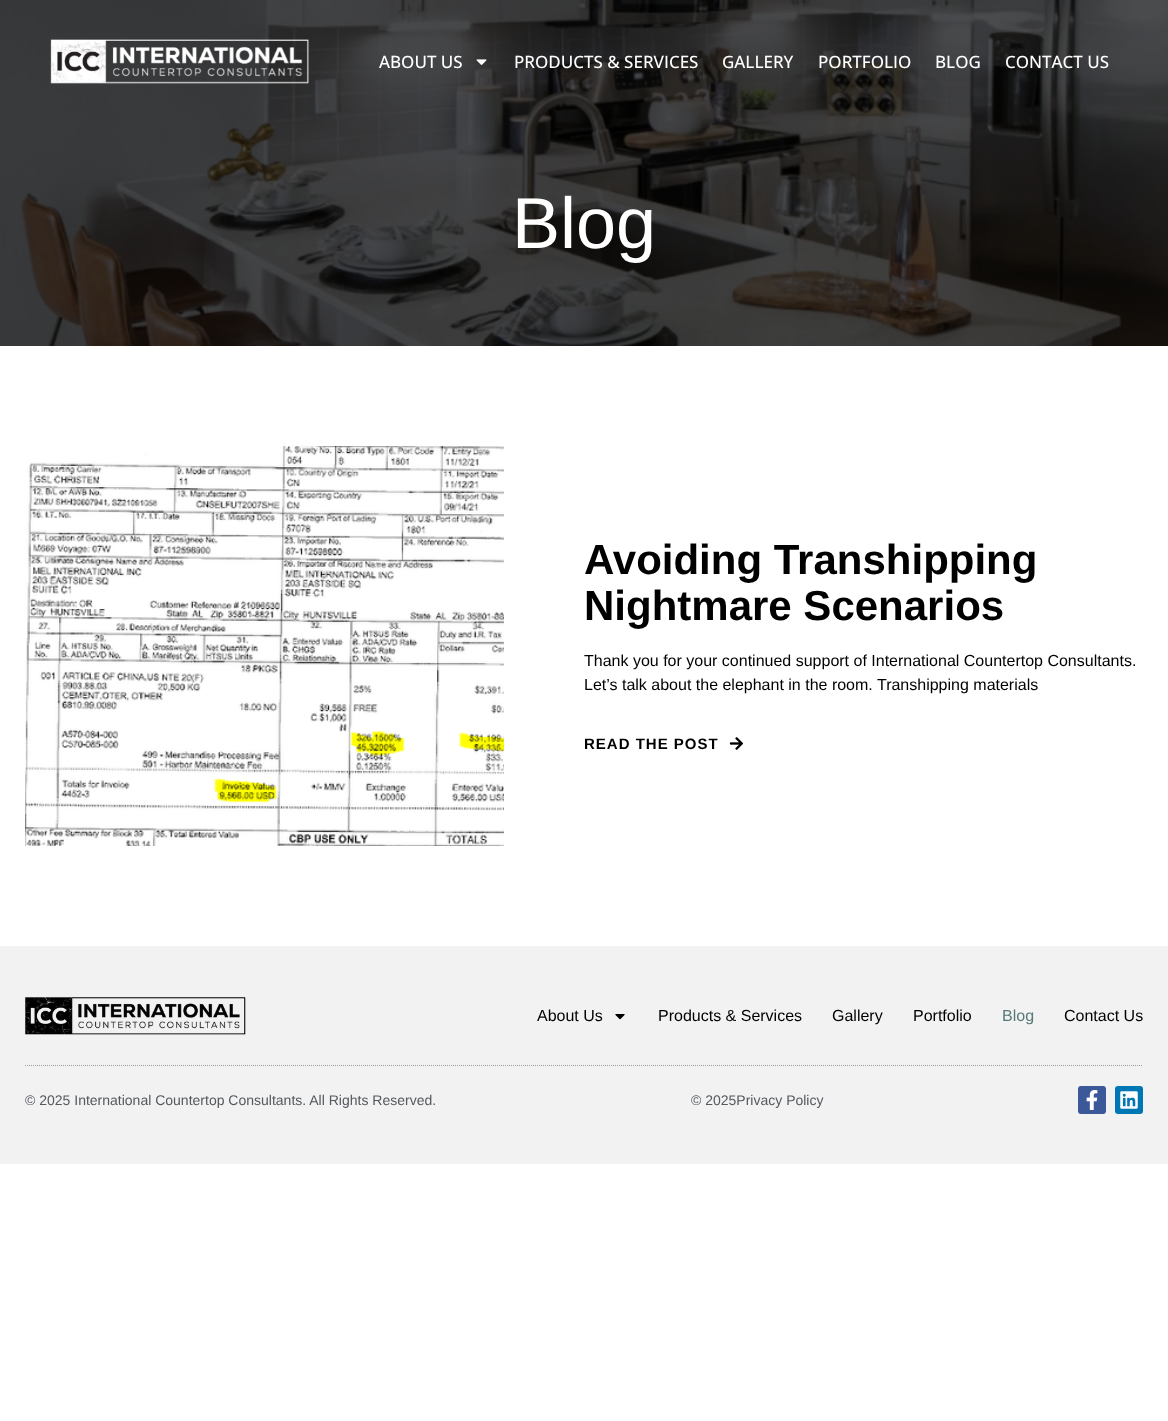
<!DOCTYPE html>
<meta charset="utf-8">
<style>body { margin: 0 } canvas { display: block }</style>
<canvas id="canvas" width="1168" height="1421"></canvas>
<img id="img1" src="images/3.png" hidden>
<img id="img2" src="images/1.png" hidden>
<img id="img3" src="images/2.png" hidden>
<img id="img4" src="images/4.png" hidden>
<img id="img5" src="images/5.png" hidden>
<img id="img6" src="images/6.png" hidden>
<img id="img7" src="images/7.png" hidden>
<img id="img8" src="images/8.png" hidden>
<img id="img9" src="images/9.png" hidden>
<script>
window.onload = function () {
    const canvas = document.getElementById('canvas');
    const context = canvas.getContext('2d');
    context.miterLimit = 4;
    context.fontKerning = 'normal';

    context.fillStyle = 'rgb(255, 255, 255)';
    context.fillRect(0, 0, 1168, 1421);
    context.drawImage(document.getElementById('img1'), 0, 0, 1168, 346);
    context.drawImage(document.getElementById('img2'), 50, 39, 259, 45);
    context.drawImage(document.getElementById('img3'), 476, 59, 11, 6);
    context.drawImage(document.getElementById('img4'), 25, 446, 479, 400);
    context.drawImage(document.getElementById('img5'), 729, 737, 14, 13);
    context.fillStyle = 'rgb(242, 242, 242)';
    context.fillRect(0, 946, 1168, 218);
    context.beginPath();
    context.moveTo(25, 1065.5);
    context.lineTo(1143, 1065.5);
    context.strokeStyle = 'rgb(155, 155, 155)';
    context.setLineDash([1, 1]);
    context.stroke();
    context.drawImage(document.getElementById('img6'), 25, 997, 221, 38);
    context.drawImage(document.getElementById('img7'), 615, 1014, 10, 6);
    context.fillStyle = 'rgb(59, 89, 152)';
    context.beginPath();
    context.roundRect(1078, 1086, 28, 28, 3);
    context.fill();
    context.drawImage(document.getElementById('img8'), 1086, 1090, 12, 20);
    context.fillStyle = 'rgb(0, 119, 181)';
    context.beginPath();
    context.roundRect(1115, 1086, 28, 28, 3);
    context.fill();
    context.drawImage(document.getElementById('img9'), 1120, 1091, 18, 18);
    context.font = '500 17px Open Sans';
    context.fillStyle = 'rgb(255, 255, 255)';
    context.fillText('ABOUT US', 379, 68);
    context.fillText('PRODUCTS & SERVICES', 514, 68);
    context.fillText('GALLERY', 722, 68);
    context.fillText('PORTFOLIO', 818, 68);
    context.fillText('BLOG', 935, 68);
    context.fillText('CONTACT US', 1005, 68);
    context.font = '72px Liberation Sans';
    context.fillText('Blog', 512, 248);
    context.font = 'bold 42px Liberation Sans';
    context.fillStyle = 'rgb(0, 0, 0)';
    context.fillText('Avoiding Transhipping', 584, 574);
    context.fillText('Nightmare Scenarios', 584, 620);
    context.font = '16px Liberation Sans';
    context.fillText('Thank you for your continued support of International Countertop Consultants.', 584, 666);
    context.fillText('Let’s talk about the elephant in the room. Transhipping materials', 584, 690);
    context.letterSpacing = '1px';
    context.font = 'bold 15px Liberation Sans';
    context.fillText('READ THE POST', 584, 749);
    context.letterSpacing = '0px';
    context.font = '16px Liberation Sans';
    context.fillText('About Us', 537, 1021);
    context.fillText('Products & Services', 658, 1021);
    context.fillText('Gallery', 832, 1021);
    context.fillText('Portfolio', 913, 1021);
    context.fillStyle = 'rgb(87, 120, 120)';
    context.fillText('Blog', 1002, 1021);
    context.fillStyle = 'rgb(0, 0, 0)';
    context.fillText('Contact Us', 1064, 1021);
    context.font = '14px Liberation Sans';
    context.fillStyle = 'rgb(84, 89, 95)';
    context.fillText('© 2025 International Countertop Consultants. All Rights Reserved.', 25, 1105);
    context.fillText('© 2025Privacy Policy', 691, 1105);
};
</script>
